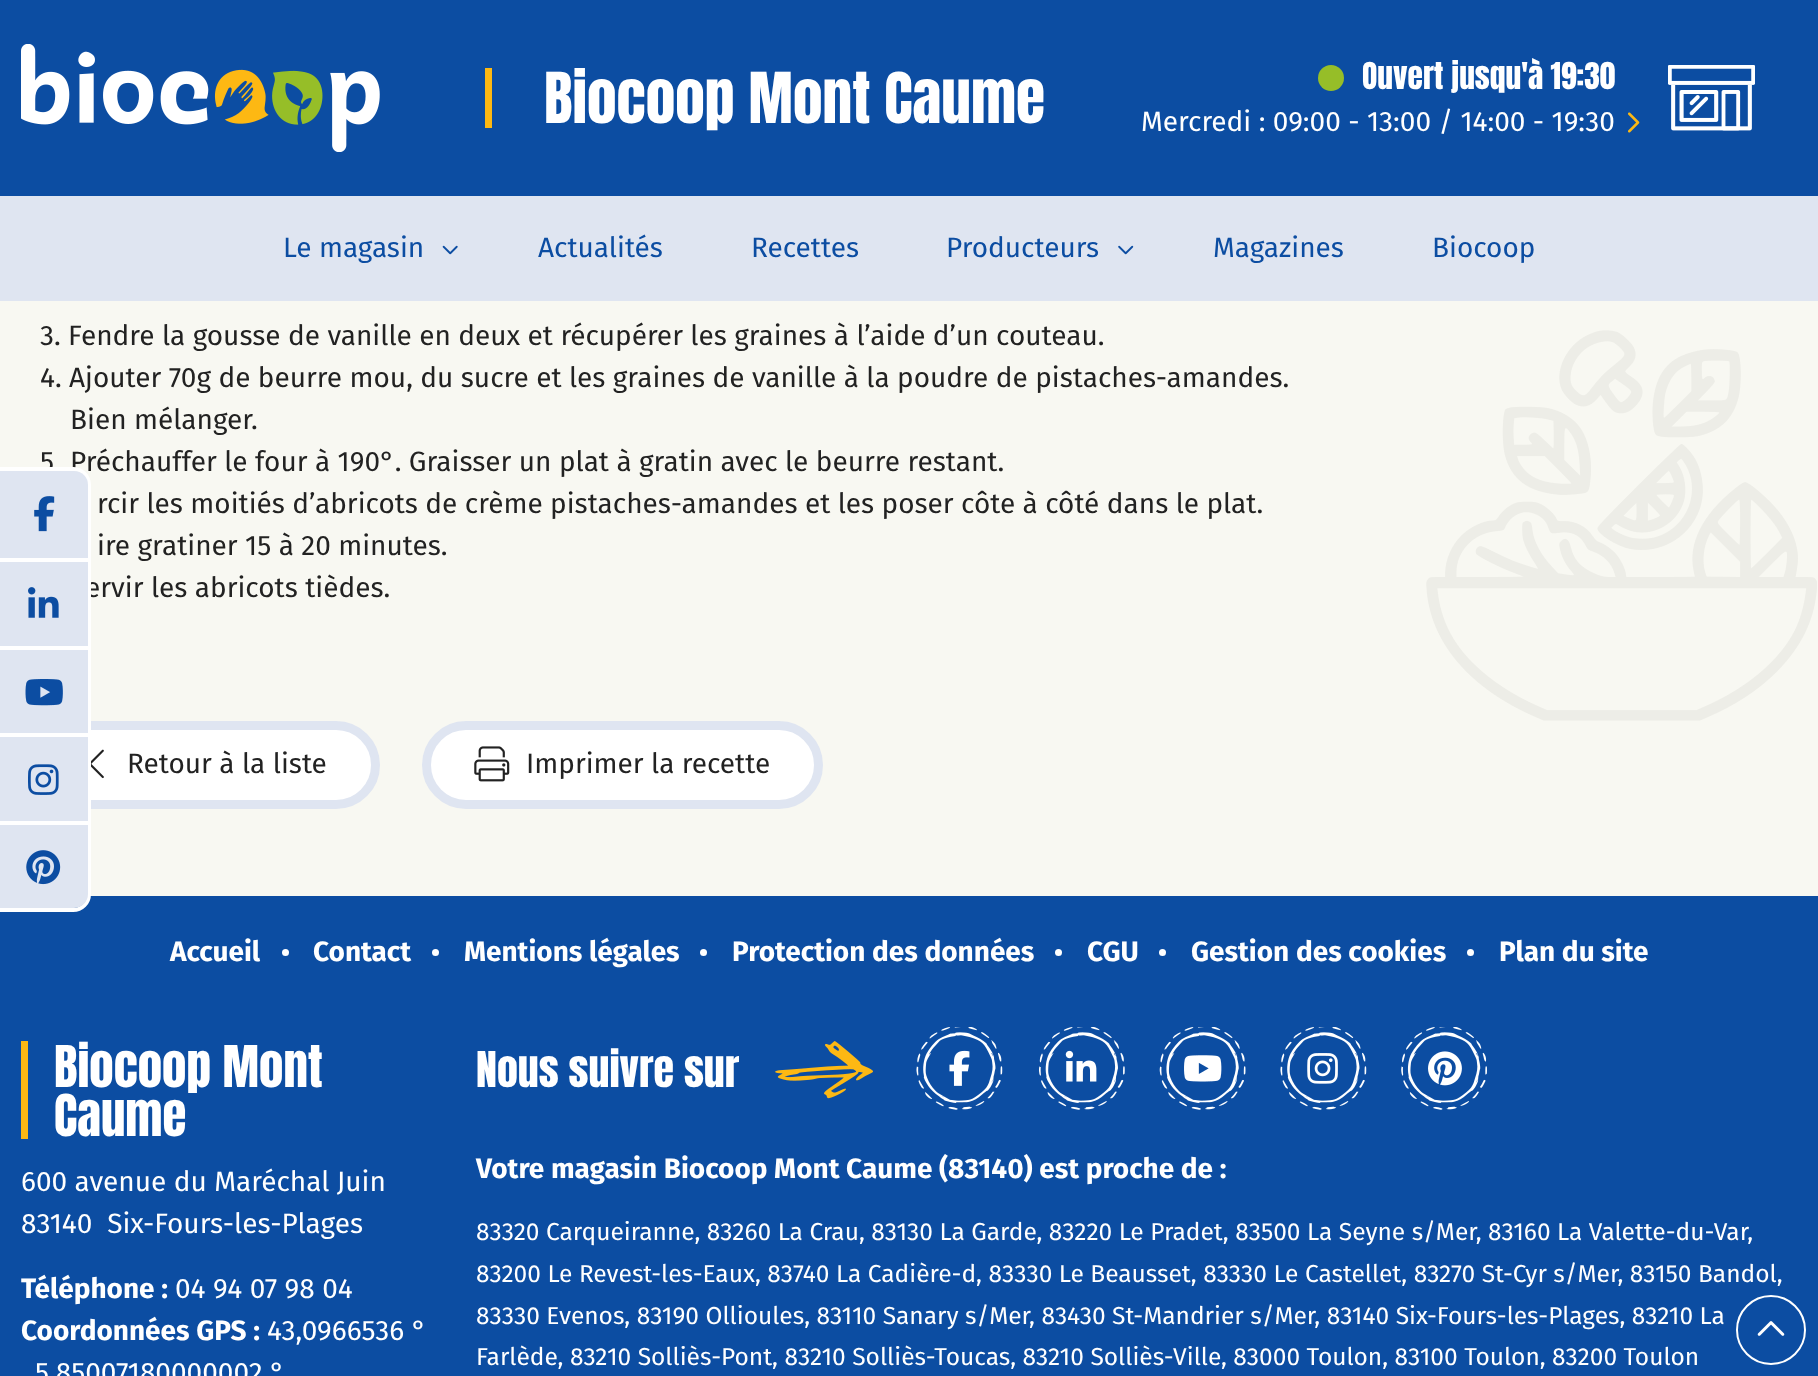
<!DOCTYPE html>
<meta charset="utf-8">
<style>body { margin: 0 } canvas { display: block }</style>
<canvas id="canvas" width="1818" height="1376"></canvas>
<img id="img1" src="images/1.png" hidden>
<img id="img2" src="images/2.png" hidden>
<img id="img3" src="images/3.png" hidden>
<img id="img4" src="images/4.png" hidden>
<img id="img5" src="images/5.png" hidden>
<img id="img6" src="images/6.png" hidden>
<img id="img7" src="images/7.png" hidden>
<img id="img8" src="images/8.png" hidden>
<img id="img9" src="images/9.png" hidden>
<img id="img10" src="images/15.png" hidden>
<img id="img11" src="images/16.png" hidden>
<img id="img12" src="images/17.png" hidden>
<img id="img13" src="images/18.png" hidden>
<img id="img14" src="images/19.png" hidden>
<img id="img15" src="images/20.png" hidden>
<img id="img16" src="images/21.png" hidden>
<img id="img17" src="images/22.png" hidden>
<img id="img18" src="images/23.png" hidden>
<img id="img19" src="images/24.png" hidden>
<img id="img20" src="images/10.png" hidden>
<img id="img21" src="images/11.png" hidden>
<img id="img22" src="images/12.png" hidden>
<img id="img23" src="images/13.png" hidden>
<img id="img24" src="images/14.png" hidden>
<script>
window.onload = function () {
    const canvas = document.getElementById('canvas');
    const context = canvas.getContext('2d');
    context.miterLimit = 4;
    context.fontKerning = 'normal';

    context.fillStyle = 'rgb(12, 77, 162)';
    context.fillRect(0, 0, 1818, 1376);
    context.drawImage(document.getElementById('img1'), 21, 44, 359, 108);
    context.fillStyle = 'rgb(253, 184, 19)';
    context.fillRect(485, 68, 7, 60);
    context.fillStyle = 'rgb(150, 190, 40)';
    context.beginPath();
    context.arc(1331, 78, 13, 0, 2 * Math.PI);
    context.fill();
    context.drawImage(document.getElementById('img2'), 1668, 65, 87, 66);
    context.drawImage(document.getElementById('img3'), 1628, 112, 12, 21);
    context.fillStyle = 'rgb(223, 229, 241)';
    context.fillRect(0, 196, 1818, 105);
    context.drawImage(document.getElementById('img4'), 442, 245, 16, 10);
    context.drawImage(document.getElementById('img5'), 1118, 245, 16, 10);
    context.beginPath();
    context.arc(1771, 1330, 34, 0, 2 * Math.PI);
    context.strokeStyle = 'rgb(255, 255, 255)';
    context.lineWidth = 2;
    context.stroke();
    context.drawImage(document.getElementById('img6'), 1757, 1321, 28, 15);
    context.fillStyle = 'rgb(248, 248, 242)';
    context.fillRect(0, 301, 1818, 595);
    context.drawImage(document.getElementById('img7'), 1426, 330, 391, 391);
    context.fillStyle = 'rgb(255, 255, 255)';
    context.beginPath();
    context.roundRect(39.5, 725.5, 336, 79, 39.5);
    context.fill();
    context.strokeStyle = 'rgb(223, 229, 241)';
    context.lineWidth = 9;
    context.stroke();
    context.drawImage(document.getElementById('img8'), 91, 749, 13, 30);
    context.beginPath();
    context.roundRect(426.5, 725.5, 392, 79, 39.5);
    context.fill();
    context.stroke();
    context.drawImage(document.getElementById('img9'), 474, 746, 36, 36);
    context.beginPath();
    context.arc(285.5, 952.5, 3.5, 0, 2 * Math.PI);
    context.fill();
    context.beginPath();
    context.arc(435.5, 952.5, 3.5, 0, 2 * Math.PI);
    context.fill();
    context.beginPath();
    context.arc(703.5, 952.5, 3.5, 0, 2 * Math.PI);
    context.fill();
    context.beginPath();
    context.arc(1058.5, 952.5, 3.5, 0, 2 * Math.PI);
    context.fill();
    context.beginPath();
    context.arc(1162.5, 952.5, 3.5, 0, 2 * Math.PI);
    context.fill();
    context.beginPath();
    context.arc(1470.5, 952.5, 3.5, 0, 2 * Math.PI);
    context.fill();
    context.fillStyle = 'rgb(253, 184, 19)';
    context.fillRect(21, 1041, 7, 98);
    context.drawImage(document.getElementById('img10'), 775, 1041, 98, 58);
    context.drawImage(document.getElementById('img11'), 916, 1027, 87, 83);
    context.drawImage(document.getElementById('img12'), 949, 1050, 21, 36);
    context.drawImage(document.getElementById('img13'), 1039, 1027, 86, 83);
    context.drawImage(document.getElementById('img14'), 1065, 1050, 32, 32);
    context.drawImage(document.getElementById('img15'), 1159, 1027, 87, 83);
    context.drawImage(document.getElementById('img16'), 1184, 1055, 38, 27);
    context.drawImage(document.getElementById('img11'), 1280, 1027, 87, 83);
    context.drawImage(document.getElementById('img17'), 1307, 1053, 31, 31);
    context.drawImage(document.getElementById('img18'), 1401, 1027, 86, 83);
    context.drawImage(document.getElementById('img19'), 1428, 1051, 34, 35);
    context.font = '59.5px Anton';
    context.fillStyle = 'rgb(255, 255, 255)';
    context.fillText('Biocoop Mont Caume', 544, 123);
    context.font = '31.5px Anton';
    context.fillText('Ouvert jusqu\'à 19:30', 1362, 89);
    context.font = '28px Fira Sans';
    context.fillText('Mercredi : 09:00 - 13:00 / 14:00 - 19:30', 1141, 131);
    context.fillStyle = 'rgb(12, 77, 162)';
    context.fillText('Le magasin', 283, 257);
    context.fillText('Actualités', 538, 257);
    context.fillText('Recettes', 751, 257);
    context.fillText('Producteurs', 946, 257);
    context.fillText('Magazines', 1213, 257);
    context.fillText('Biocoop', 1432, 257);
    context.fillStyle = 'rgb(34, 34, 34)';
    context.fillText('3. Fendre la gousse de vanille en deux et récupérer les graines à l’aide d’un couteau.', 40, 345);
    context.fillText('4. Ajouter 70g de beurre mou, du sucre et les graines de vanille à la poudre de pistaches-amandes.', 40, 387);
    context.fillText('Bien mélanger.', 70, 429);
    context.fillText('5', 40, 471);
    context.fillText('Préchauffer le four à 190°. Graisser un plat à gratin avec le beurre restant.', 70, 471);
    context.fillText('rcir les moitiés d’abricots de crème pistaches-amandes et les poser côte à côté dans le plat.', 97, 513);
    context.fillText('ire gratiner 15 à 20 minutes.', 97, 555);
    context.fillText('ervir les abricots tièdes.', 85, 597);
    context.fillText('Retour à la liste', 127, 773);
    context.fillText('Imprimer la recette', 526, 773);
    context.beginPath();
    context.moveTo(-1, 469);
    context.lineTo(73, 469);
    context.bezierCurveTo(82, 469, 89, 476, 89, 485);
    context.lineTo(89, 894);
    context.bezierCurveTo(89, 903, 82, 910, 73, 910);
    context.lineTo(-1, 910);
    context.closePath();
    context.strokeStyle = 'rgb(255, 255, 255)';
    context.lineWidth = 4;
    context.stroke();
    context.fillStyle = 'rgb(223, 229, 241)';
    context.beginPath();
    context.roundRect(0, 471, 88, 87, [0, 14, 0, 0]);
    context.fill();
    context.drawImage(document.getElementById('img20'), 34, 496, 21, 36);
    context.fillRect(0, 562, 88, 84);
    context.fillStyle = 'rgb(255, 255, 255)';
    context.fillRect(0, 558, 88, 4);
    context.drawImage(document.getElementById('img21'), 28, 587, 31, 31);
    context.fillStyle = 'rgb(223, 229, 241)';
    context.fillRect(0, 650, 88, 83);
    context.fillStyle = 'rgb(255, 255, 255)';
    context.fillRect(0, 646, 88, 4);
    context.drawImage(document.getElementById('img22'), 25, 679, 38, 27);
    context.fillStyle = 'rgb(223, 229, 241)';
    context.fillRect(0, 737, 88, 84);
    context.fillStyle = 'rgb(255, 255, 255)';
    context.fillRect(0, 733, 65, 4);
    context.drawImage(document.getElementById('img23'), 28, 764, 31, 31);
    context.fillStyle = 'rgb(223, 229, 241)';
    context.beginPath();
    context.roundRect(0, 824, 88, 84, [0, 0, 14, 0]);
    context.fill();
    context.fillStyle = 'rgb(255, 255, 255)';
    context.fillRect(0, 821, 88, 4);
    context.drawImage(document.getElementById('img24'), 26, 850, 35, 35);
    context.font = 'bold 28px Fira Sans';
    context.fillText('Accueil', 170, 961);
    context.fillText('Contact', 313, 961);
    context.fillText('Mentions légales', 464, 961);
    context.fillText('Protection des données', 732, 961);
    context.fillText('CGU', 1087, 961);
    context.fillText('Gestion des cookies', 1191, 961);
    context.fillText('Plan du site', 1499, 961);
    context.font = '49px Anton';
    context.fillText('Biocoop Mont', 54, 1087);
    context.fillText('Caume', 54, 1136);
    context.font = '28px Fira Sans';
    context.fillText('600 avenue du Maréchal Juin', 21, 1191);
    context.fillText('83140  Six-Fours-les-Plages', 21, 1233);
    context.font = 'bold 28px Fira Sans';
    context.fillText('Téléphone :', 21, 1298);
    context.font = '28px Fira Sans';
    context.fillText('04 94 07 98 04', 175, 1298);
    context.font = 'bold 28px Fira Sans';
    context.fillText('Coordonnées GPS :', 21, 1340);
    context.font = '28px Fira Sans';
    context.fillText('43,0966536 °', 267, 1340);
    context.fillText('5,85007180000002 °', 35, 1382);
    context.font = '42px Anton';
    context.fillText('Nous suivre sur', 476, 1087);
    context.font = 'bold 28px Fira Sans';
    context.fillText('Votre magasin Biocoop Mont Caume (83140) est proche de :', 476, 1178);
    context.font = '24.5px Fira Sans';
    context.fillText('83320 Carqueiranne, 83260 La Crau, 83130 La Garde, 83220 Le Pradet, 83500 La Seyne s/Mer, 83160 La Valette-du-Var,', 476, 1240);
    context.fillText('83200 Le Revest-les-Eaux, 83740 La Cadière-d, 83330 Le Beausset, 83330 Le Castellet, 83270 St-Cyr s/Mer, 83150 Bandol,', 476, 1282);
    context.fillText('83330 Evenos, 83190 Ollioules, 83110 Sanary s/Mer, 83430 St-Mandrier s/Mer, 83140 Six-Fours-les-Plages, 83210 La', 476, 1324);
    context.fillText('Farlède, 83210 Solliès-Pont, 83210 Solliès-Toucas, 83210 Solliès-Ville, 83000 Toulon, 83100 Toulon, 83200 Toulon', 476, 1365);
};
</script>
